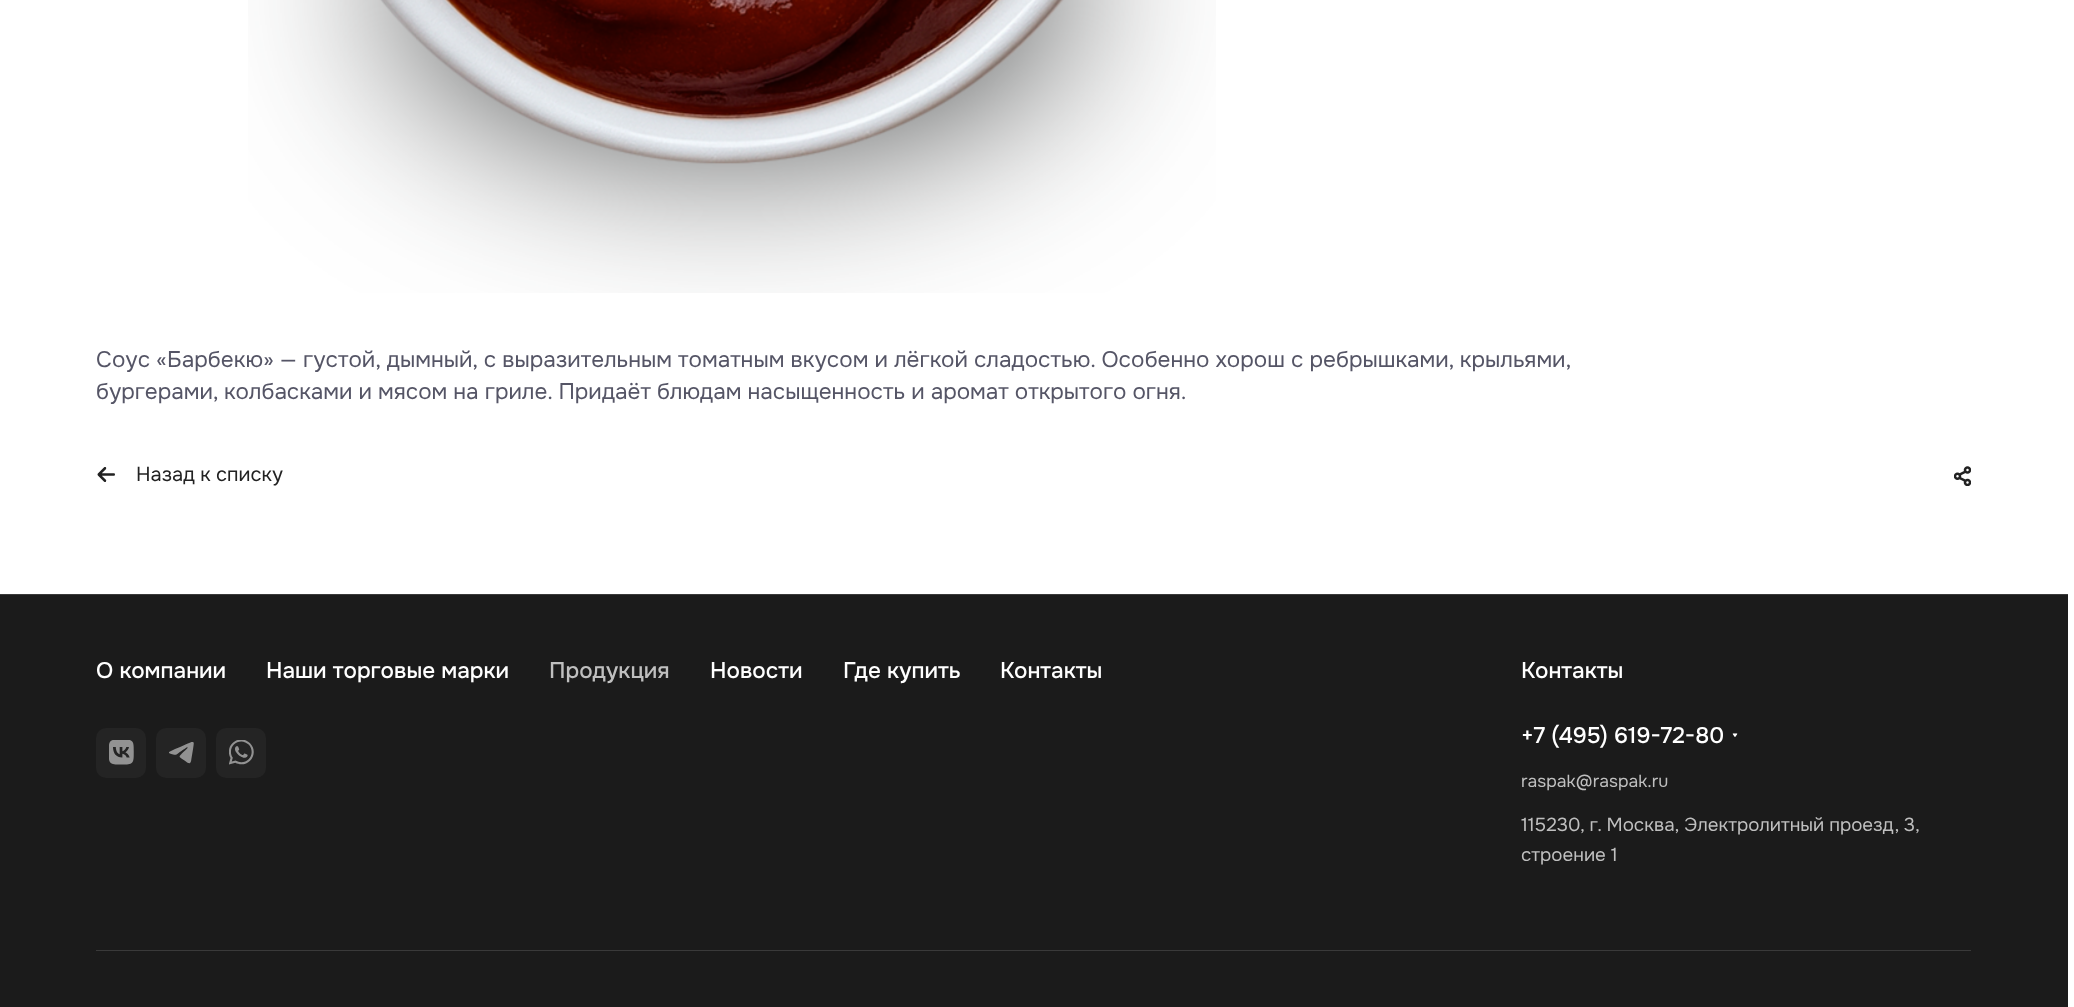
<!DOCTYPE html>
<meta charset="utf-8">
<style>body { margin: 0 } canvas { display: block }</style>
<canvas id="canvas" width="2074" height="1007"></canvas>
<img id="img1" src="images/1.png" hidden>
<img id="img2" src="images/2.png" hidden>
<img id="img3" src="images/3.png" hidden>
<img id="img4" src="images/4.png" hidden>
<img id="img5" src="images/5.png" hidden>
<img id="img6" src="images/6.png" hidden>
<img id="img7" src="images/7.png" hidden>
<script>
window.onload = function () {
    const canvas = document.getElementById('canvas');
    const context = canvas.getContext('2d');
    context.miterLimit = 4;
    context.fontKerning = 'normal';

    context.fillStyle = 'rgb(255, 255, 255)';
    context.fillRect(0, 0, 2074, 1007);
    context.drawImage(document.getElementById('img1'), 248, 0, 968, 293);
    context.drawImage(document.getElementById('img2'), 97, 467, 18, 15);
    context.drawImage(document.getElementById('img3'), 1954, 466, 17, 20);
    context.fillStyle = 'rgb(27, 27, 27)';
    context.fillRect(0, 595, 2068, 412);
    context.fillStyle = 'rgb(58, 58, 58)';
    context.fillRect(0, 594, 2068, 1);
    context.fillStyle = 'rgb(36, 36, 36)';
    context.beginPath();
    context.roundRect(96, 728, 50, 50, 10);
    context.fill();
    context.drawImage(document.getElementById('img4'), 109, 740, 25, 25);
    context.beginPath();
    context.roundRect(156, 728, 50, 50, 10);
    context.fill();
    context.drawImage(document.getElementById('img5'), 169, 742, 25, 22);
    context.beginPath();
    context.roundRect(216, 728, 50, 50, 10);
    context.fill();
    context.drawImage(document.getElementById('img6'), 229, 740, 25, 25);
    context.drawImage(document.getElementById('img7'), 1732, 733, 6, 4);
    context.fillStyle = 'rgb(58, 58, 58)';
    context.fillRect(96, 950, 1875, 1);
    context.font = '22.5px Onest';
    context.fillStyle = 'rgb(85, 85, 102)';
    context.fillText('Соус «Барбекю» — густой, дымный, с выразительным томатным вкусом и лёгкой сладостью. Особенно хорош с ребрышками, крыльями,', 96, 367);
    context.fillText('бургерами, колбасками и мясом на гриле. Придаёт блюдам насыщенность и аромат открытого огня.', 96, 399);
    context.font = '20px Onest';
    context.fillStyle = 'rgb(34, 34, 34)';
    context.fillText('Назад к списку', 136, 481);
    context.font = '500 22.5px Onest';
    context.fillStyle = 'rgb(255, 255, 255)';
    context.fillText('О компании', 96, 678);
    context.fillText('Наши торговые марки', 266, 678);
    context.fillStyle = 'rgb(191, 191, 191)';
    context.fillText('Продукция', 549, 678);
    context.fillStyle = 'rgb(255, 255, 255)';
    context.fillText('Новости', 710, 678);
    context.fillText('Где купить', 843, 678);
    context.fillText('Контакты', 1000, 678);
    context.fillText('Контакты', 1521, 678);
    context.fillText('+7 (495) 619-72-80', 1521, 743);
    context.font = '17.5px Onest';
    context.fillStyle = 'rgb(191, 191, 191)';
    context.fillText('raspak@raspak.ru', 1521, 787);
    context.font = '18.75px Onest';
    context.fillText('115230, г. Москва, Электролитный проезд, 3,', 1521, 831);
    context.fillText('строение 1', 1521, 861);
};
</script>
